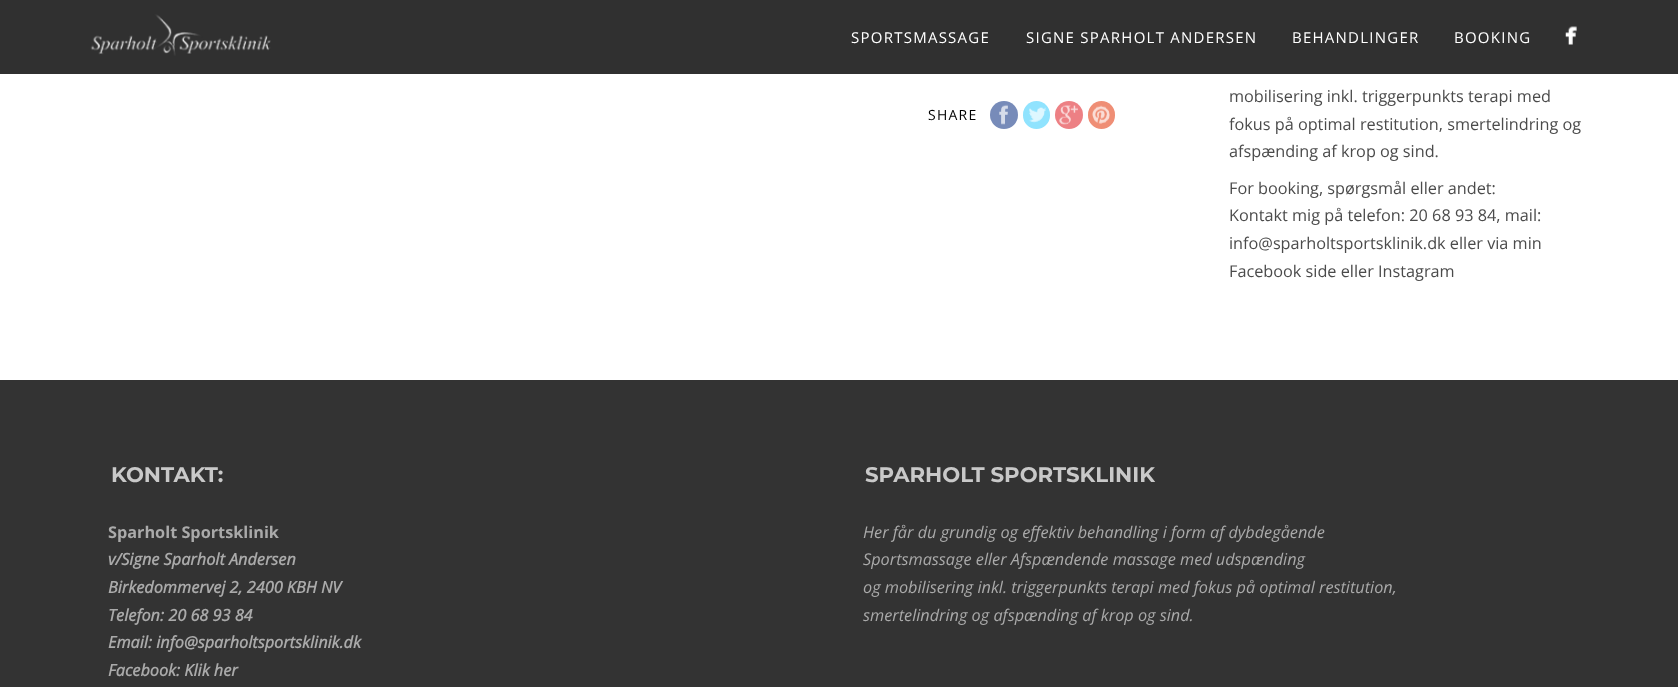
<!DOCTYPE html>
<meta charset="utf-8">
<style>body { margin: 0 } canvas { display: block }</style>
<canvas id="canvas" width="1678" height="687"></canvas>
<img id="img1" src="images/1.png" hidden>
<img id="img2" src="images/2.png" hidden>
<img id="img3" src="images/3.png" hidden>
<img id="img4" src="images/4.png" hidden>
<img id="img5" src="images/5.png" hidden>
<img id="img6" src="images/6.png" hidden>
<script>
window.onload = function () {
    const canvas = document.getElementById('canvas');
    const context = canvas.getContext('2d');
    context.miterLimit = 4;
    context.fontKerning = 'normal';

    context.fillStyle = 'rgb(255, 255, 255)';
    context.fillRect(0, 0, 1678, 687);
    context.fillStyle = 'rgba(37, 37, 37, 0.95)';
    context.fillRect(0, 0, 1678, 74);
    context.drawImage(document.getElementById('img1'), 90, 14, 181, 42);
    context.drawImage(document.getElementById('img2'), 1565, 26, 12, 19);
    context.fillStyle = 'rgb(119, 139, 185)';
    context.beginPath();
    context.arc(1004, 115, 14, 0, 2 * Math.PI);
    context.fill();
    context.drawImage(document.getElementById('img3'), 999, 104, 9, 21);
    context.fillStyle = 'rgb(144, 227, 254)';
    context.beginPath();
    context.roundRect(1023, 101, 27, 28, 13.5);
    context.fill();
    context.drawImage(document.getElementById('img4'), 1029, 107, 17, 16);
    context.fillStyle = 'rgb(237, 128, 132)';
    context.beginPath();
    context.arc(1069, 115, 14, 0, 2 * Math.PI);
    context.fill();
    context.drawImage(document.getElementById('img5'), 1059, 105, 19, 20);
    context.fillStyle = 'rgb(239, 142, 117)';
    context.beginPath();
    context.roundRect(1088, 101, 27, 28, 13.5);
    context.fill();
    context.drawImage(document.getElementById('img6'), 1092, 105, 18, 19);
    context.fillStyle = 'rgb(51, 51, 51)';
    context.fillRect(0, 380, 1678, 307);
    context.letterSpacing = '1.25px';
    context.font = '15px Open Sans';
    context.fillStyle = 'rgb(255, 255, 255)';
    context.fillText('SPORTSMASSAGE', 851, 43);
    context.fillText('SIGNE SPARHOLT ANDERSEN', 1026, 43);
    context.fillText('BEHANDLINGER', 1292, 43);
    context.fillText('BOOKING', 1454, 43);
    context.font = '14px Open Sans';
    context.fillStyle = 'rgb(0, 0, 0)';
    context.fillText('SHARE', 928, 120);
    context.letterSpacing = '0px';
    context.font = '16.25px Open Sans';
    context.fillStyle = 'rgb(75, 75, 75)';
    context.fillText('mobilisering inkl. triggerpunkts terapi med', 1229, 102);
    context.fillText('fokus på optimal restitution, smertelindring og', 1229, 130);
    context.fillText('afspænding af krop og sind.', 1229, 157);
    context.fillText('For booking, spørgsmål eller andet:', 1229, 194);
    context.fillText('Kontakt mig på telefon: 20 68 93 84, mail:', 1229, 221);
    context.fillText('info@sparholtsportsklinik.dk eller via min', 1229, 249);
    context.fillText('Facebook side eller Instagram', 1229, 277);
    context.font = 'bold 21.25px Montserrat';
    context.fillStyle = 'rgb(201, 201, 201)';
    context.fillText('KONTAKT:', 111, 482);
    context.font = 'bold 16.25px Open Sans';
    context.fillStyle = 'rgb(170, 170, 170)';
    context.fillText('Sparholt Sportsklinik', 108, 538);
    context.font = 'italic bold 16.25px Open Sans';
    context.fillText('v/Signe Sparholt Andersen', 108, 565);
    context.fillText('Birkedommervej 2, 2400 KBH NV', 108, 593);
    context.fillText('Telefon: 20 68 93 84', 108, 621);
    context.fillText('Email: info@sparholtsportsklinik.dk', 108, 648);
    context.fillText('Facebook: Klik her', 108, 676);
    context.font = 'bold 21.25px Montserrat';
    context.fillStyle = 'rgb(201, 201, 201)';
    context.fillText('SPARHOLT SPORTSKLINIK', 865, 482);
    context.font = 'italic 16.25px Open Sans';
    context.fillStyle = 'rgb(170, 170, 170)';
    context.fillText('Her får du grundig og effektiv behandling i form af dybdegående', 863, 538);
    context.fillText('Sportsmassage eller Afspændende massage med udspænding', 863, 565);
    context.fillText('og mobilisering inkl. triggerpunkts terapi med fokus på optimal restitution,', 863, 593);
    context.fillText('smertelindring og afspænding af krop og sind.', 863, 621);
};
</script>
